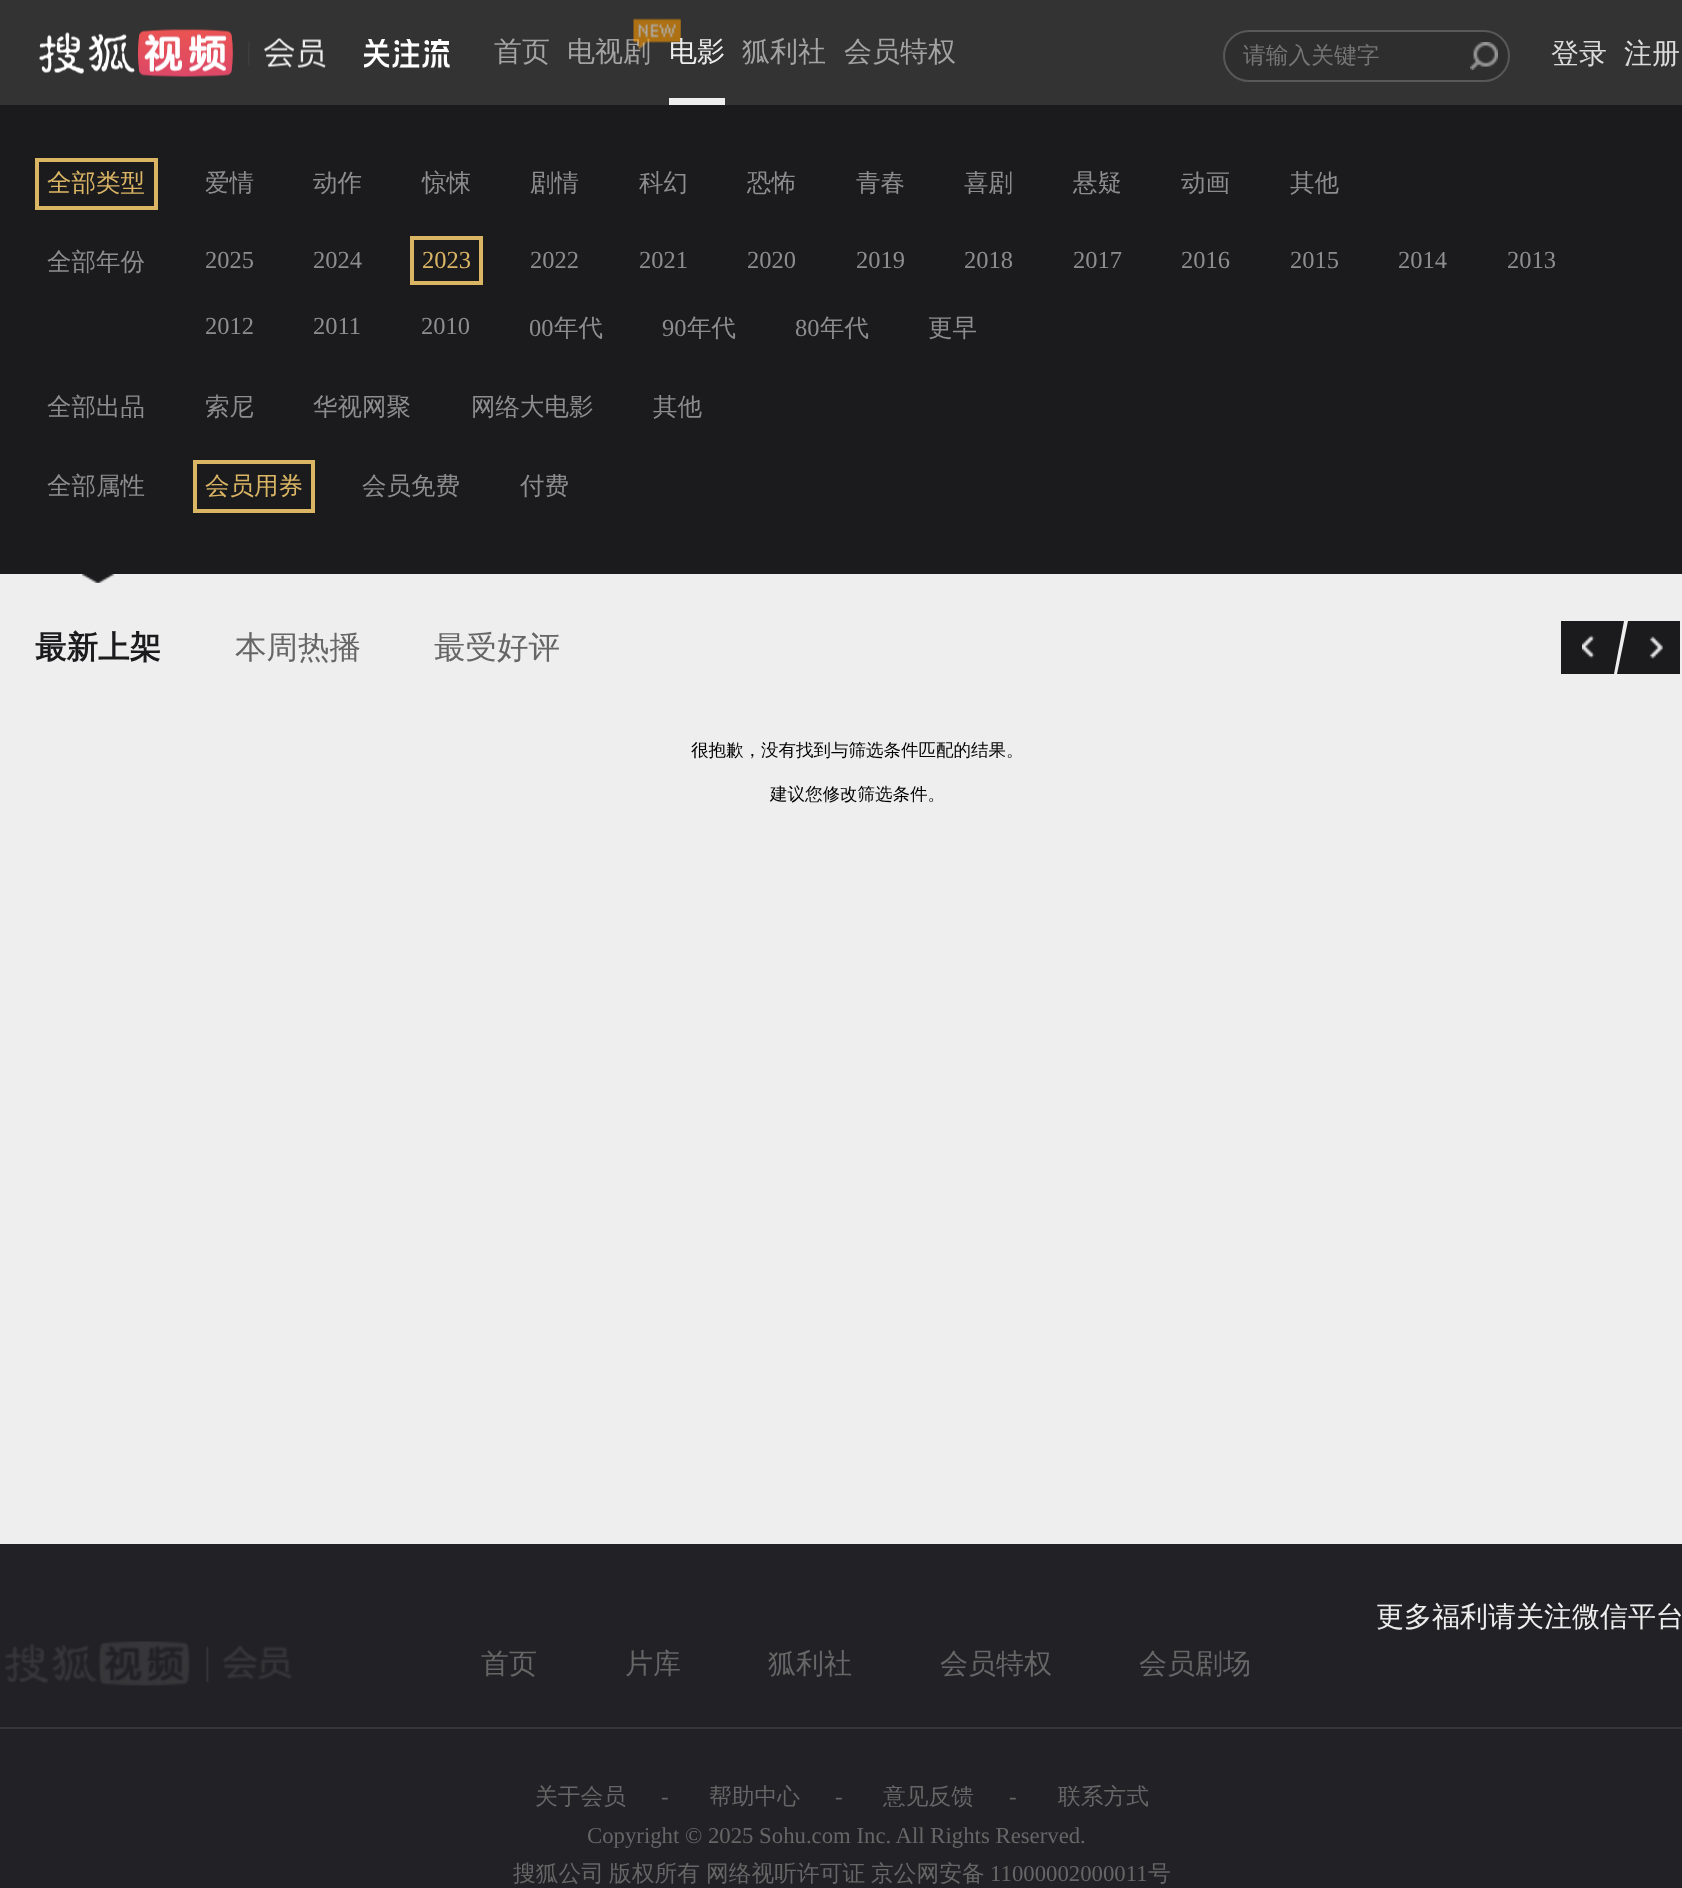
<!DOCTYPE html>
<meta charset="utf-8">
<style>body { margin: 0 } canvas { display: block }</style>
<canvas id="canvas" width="1682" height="1888"></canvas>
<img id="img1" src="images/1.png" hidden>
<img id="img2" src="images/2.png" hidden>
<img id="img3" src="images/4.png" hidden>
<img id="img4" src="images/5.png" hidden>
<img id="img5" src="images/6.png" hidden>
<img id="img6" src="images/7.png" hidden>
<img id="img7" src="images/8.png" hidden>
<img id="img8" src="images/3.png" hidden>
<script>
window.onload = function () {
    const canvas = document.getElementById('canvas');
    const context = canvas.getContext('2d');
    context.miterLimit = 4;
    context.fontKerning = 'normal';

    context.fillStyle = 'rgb(238, 238, 238)';
    context.fillRect(0, 0, 1682, 1888);
    context.fillStyle = 'rgb(51, 51, 51)';
    context.fillRect(0, 0, 1682, 105);
    context.drawImage(document.getElementById('img1'), 39, 29, 287, 48);
    context.drawImage(document.getElementById('img2'), 364, 39, 86, 29);
    context.fillStyle = 'rgb(238, 238, 238)';
    context.fillRect(669, 98, 56, 7);
    context.fillStyle = 'rgb(46, 46, 46)';
    context.beginPath();
    context.roundRect(1224, 31, 285, 50, 25);
    context.fill();
    context.strokeStyle = 'rgb(88, 88, 88)';
    context.lineWidth = 2;
    context.stroke();
    context.drawImage(document.getElementById('img3'), 1470, 42, 28, 28);
    context.fillStyle = 'rgb(27, 27, 30)';
    context.fillRect(0, 105, 1682, 469);
    context.strokeStyle = 'rgb(218, 181, 100)';
    context.lineWidth = 4;
    context.strokeRect(37, 160, 119, 48);
    context.strokeRect(412, 238, 69, 45);
    context.strokeRect(195, 462, 118, 49);
    context.drawImage(document.getElementById('img4'), 82, 574, 32, 9);
    context.beginPath();
    context.moveTo(1561, 621);
    context.lineTo(1624, 621);
    context.lineTo(1614, 674);
    context.lineTo(1561, 674);
    context.closePath();
    context.fill();
    context.drawImage(document.getElementById('img5'), 1582, 635, 13, 24);
    context.beginPath();
    context.moveTo(1680, 674);
    context.lineTo(1617, 674);
    context.lineTo(1628, 621);
    context.lineTo(1680, 621);
    context.closePath();
    context.fill();
    context.drawImage(document.getElementById('img6'), 1649, 636, 14, 23);
    context.fillStyle = 'rgb(34, 34, 38)';
    context.fillRect(0, 1544, 1682, 344);
    context.drawImage(document.getElementById('img7'), 5, 1641, 287, 45);
    context.fillStyle = 'rgb(55, 55, 58)';
    context.fillRect(0, 1727, 1682, 2);
    context.font = '500 28px WenQuanYi Zen Hei';
    context.fillStyle = 'rgb(163, 163, 163)';
    context.fillText('首页', 494, 61);
    context.fillText('电视剧', 567, 61);
    context.drawImage(document.getElementById('img8'), 633, 18, 48, 32);
    context.fillStyle = 'rgb(238, 238, 238)';
    context.fillText('电影', 669, 61);
    context.fillStyle = 'rgb(163, 163, 163)';
    context.fillText('狐利社', 742, 61);
    context.fillText('会员特权', 844, 61);
    context.font = '500 22.75px WenQuanYi Zen Hei';
    context.fillStyle = 'rgb(117, 117, 117)';
    context.fillText('请输入关键字', 1243, 63);
    context.font = '500 28px WenQuanYi Zen Hei';
    context.fillStyle = 'rgb(219, 219, 219)';
    context.fillText('登录', 1551, 63);
    context.fillText('注册', 1624, 63);
    context.font = '500 24.5px WenQuanYi Zen Hei';
    context.fillStyle = 'rgb(218, 181, 100)';
    context.fillText('全部类型', 47, 191);
    context.fillStyle = 'rgb(141, 141, 141)';
    context.fillText('爱情', 205, 191);
    context.fillText('动作', 313, 191);
    context.fillText('惊悚', 422, 191);
    context.fillText('剧情', 530, 191);
    context.fillText('科幻', 639, 191);
    context.fillText('恐怖', 747, 191);
    context.fillText('青春', 856, 191);
    context.fillText('喜剧', 964, 191);
    context.fillText('悬疑', 1073, 191);
    context.fillText('动画', 1181, 191);
    context.fillText('其他', 1290, 191);
    context.fillText('全部年份', 47, 270);
    context.font = '24.5px Liberation Serif';
    context.fillText('2025', 205, 268);
    context.fillText('2024', 313, 268);
    context.fillStyle = 'rgb(218, 181, 100)';
    context.fillText('2023', 422, 268);
    context.fillStyle = 'rgb(141, 141, 141)';
    context.fillText('2022', 530, 268);
    context.fillText('2021', 639, 268);
    context.fillText('2020', 747, 268);
    context.fillText('2019', 856, 268);
    context.fillText('2018', 964, 268);
    context.fillText('2017', 1073, 268);
    context.fillText('2016', 1181, 268);
    context.fillText('2015', 1290, 268);
    context.fillText('2014', 1398, 268);
    context.fillText('2013', 1507, 268);
    context.fillText('2012', 205, 334);
    context.fillText('2011', 313, 334);
    context.fillText('2010', 421, 334);
    context.fillText('00', 529, 336);
    context.font = '500 24.5px WenQuanYi Zen Hei';
    context.fillText('年代', 554, 336);
    context.font = '24.5px Liberation Serif';
    context.fillText('90', 662, 336);
    context.font = '500 24.5px WenQuanYi Zen Hei';
    context.fillText('年代', 687, 336);
    context.font = '24.5px Liberation Serif';
    context.fillText('80', 795, 336);
    context.font = '500 24.5px WenQuanYi Zen Hei';
    context.fillText('年代', 820, 336);
    context.fillText('更早', 928, 336);
    context.fillText('全部出品', 47, 415);
    context.fillText('索尼', 205, 415);
    context.fillText('华视网聚', 313, 415);
    context.fillText('网络大电影', 471, 415);
    context.fillText('其他', 653, 415);
    context.fillText('全部属性', 47, 494);
    context.fillStyle = 'rgb(218, 181, 100)';
    context.fillText('会员用券', 205, 494);
    context.fillStyle = 'rgb(141, 141, 141)';
    context.fillText('会员免费', 362, 494);
    context.fillText('付费', 520, 494);
    context.font = 'bold 31.5px WenQuanYi Zen Hei';
    context.fillStyle = 'rgb(27, 27, 30)';
    context.fillText('最新上架', 35, 658);
    context.font = '500 31.5px WenQuanYi Zen Hei';
    context.fillStyle = 'rgb(102, 102, 102)';
    context.fillText('本周热播', 235, 658);
    context.fillText('最受好评', 434, 658);
    context.font = '500 17.5px WenQuanYi Zen Hei';
    context.fillStyle = 'rgb(0, 0, 0)';
    context.fillText('很抱歉，没有找到与筛选条件匹配的结果。', 691, 756);
    context.fillText('建议您修改筛选条件。', 770, 800);
    context.font = '500 28px WenQuanYi Zen Hei';
    context.fillStyle = 'rgb(238, 238, 238)';
    context.fillText('更多福利请关注微信平台', 1376, 1626);
    context.fillStyle = 'rgb(102, 102, 102)';
    context.fillText('首页', 481, 1673);
    context.fillText('片库', 625, 1673);
    context.fillText('狐利社', 768, 1673);
    context.fillText('会员特权', 940, 1673);
    context.fillText('会员剧场', 1139, 1673);
    context.font = '500 22.75px WenQuanYi Zen Hei';
    context.fillText('关于会员', 535, 1804);
    context.font = '22.75px Liberation Serif';
    context.fillText('-', 661, 1804);
    context.font = '500 22.75px WenQuanYi Zen Hei';
    context.fillText('帮助中心', 709, 1804);
    context.font = '22.75px Liberation Serif';
    context.fillText('-', 835, 1804);
    context.font = '500 22.75px WenQuanYi Zen Hei';
    context.fillText('意见反馈', 883, 1804);
    context.font = '22.75px Liberation Serif';
    context.fillText('-', 1009, 1804);
    context.font = '500 22.75px WenQuanYi Zen Hei';
    context.fillText('联系方式', 1058, 1804);
    context.font = '22.75px Liberation Serif';
    context.fillText('Copyright © 2025 Sohu.com Inc. All Rights Reserved.', 587, 1843);
    context.font = '500 22.75px WenQuanYi Zen Hei';
    context.fillText('搜狐公司', 513, 1881);
    context.fillText('版权所有', 609, 1881);
    context.fillText('网络视听许可证', 706, 1881);
    context.fillText('京公网安备', 871, 1881);
    context.font = '22.75px Liberation Serif';
    context.fillText('11000002000011', 990, 1881);
    context.font = '500 22.75px WenQuanYi Zen Hei';
    context.fillText('号', 1148, 1881);
};
</script>
